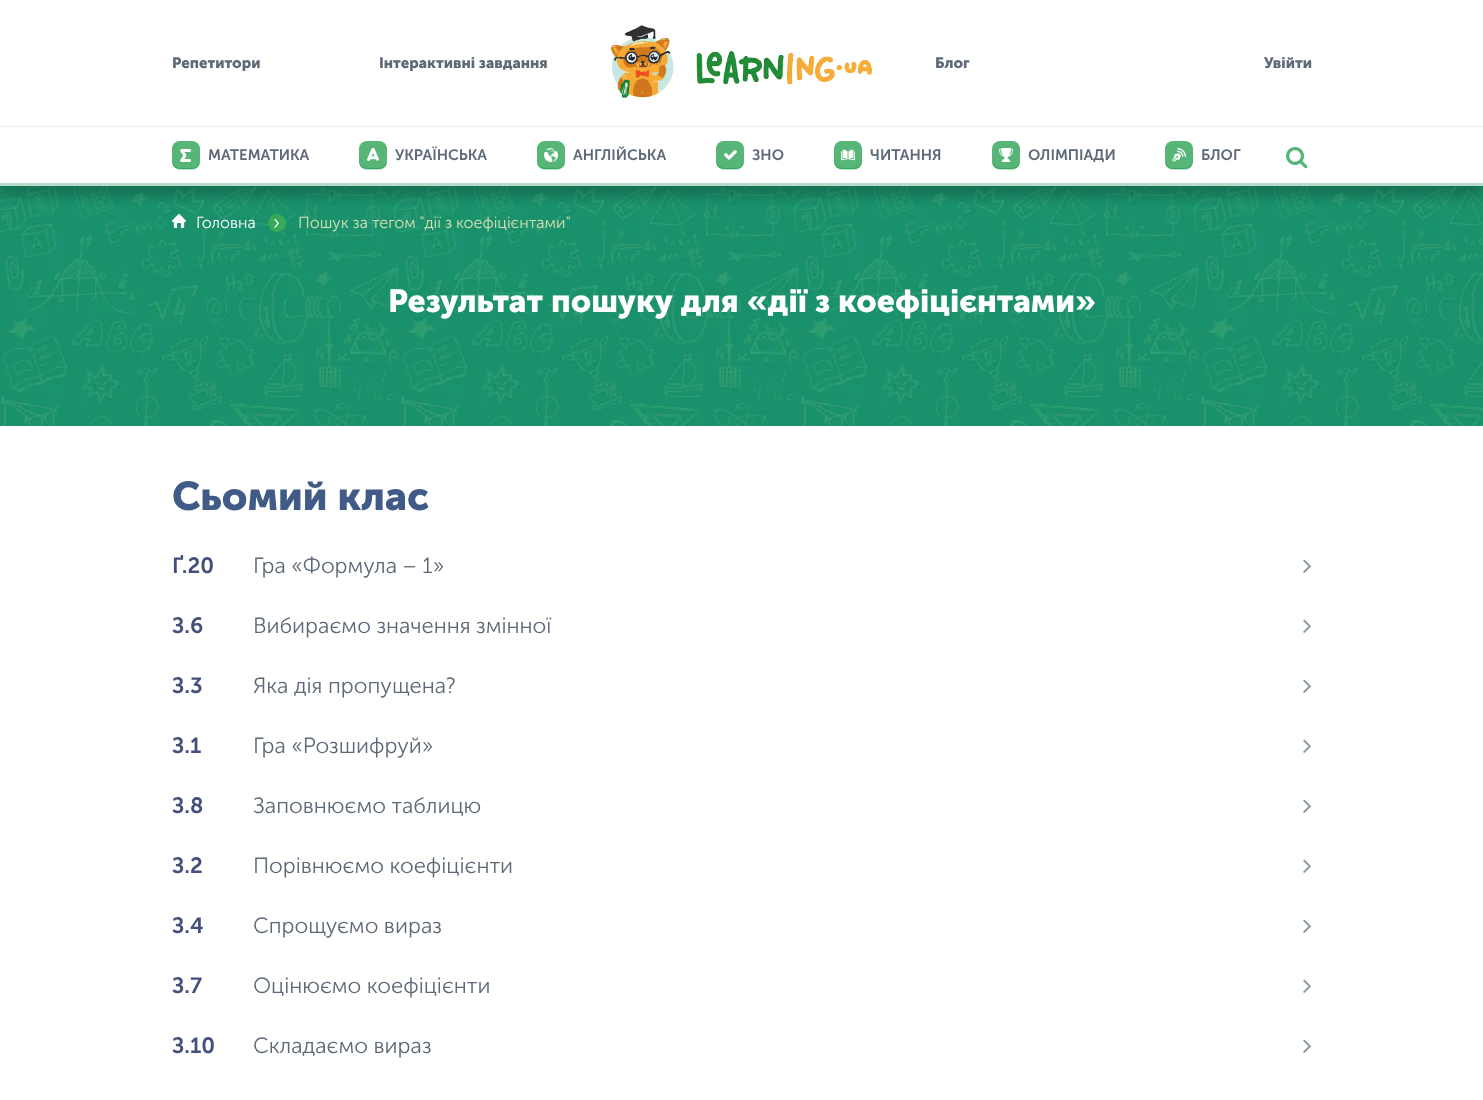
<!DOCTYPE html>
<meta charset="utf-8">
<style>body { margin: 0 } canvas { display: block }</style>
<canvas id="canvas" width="1483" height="1100"></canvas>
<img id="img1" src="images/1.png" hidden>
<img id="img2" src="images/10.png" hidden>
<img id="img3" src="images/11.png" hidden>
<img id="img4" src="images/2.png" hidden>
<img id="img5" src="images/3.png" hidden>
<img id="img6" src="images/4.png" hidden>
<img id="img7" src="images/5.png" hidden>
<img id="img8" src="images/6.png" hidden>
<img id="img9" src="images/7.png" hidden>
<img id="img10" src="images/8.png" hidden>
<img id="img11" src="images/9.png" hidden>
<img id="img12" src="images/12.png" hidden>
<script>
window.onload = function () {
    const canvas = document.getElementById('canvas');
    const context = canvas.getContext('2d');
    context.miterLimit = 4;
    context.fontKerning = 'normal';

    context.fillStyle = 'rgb(255, 255, 255)';
    context.fillRect(0, 0, 1483, 1100);
    context.drawImage(document.getElementById('img1'), 610, 25, 262, 73);
    context.drawImage(document.getElementById('img2'), 0, 186, 1483, 240);
    context.drawImage(document.getElementById('img3'), 172, 214, 14, 14);
    context.fillStyle = 'rgb(55, 170, 89)';
    context.beginPath();
    context.arc(277, 223, 9, 0, 2 * Math.PI);
    context.fill();
    context.save();
    context.beginPath();
    context.rect(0, 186, 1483, 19);
    context.clip();
    context.fillStyle = 'rgba(0, 0, 0, 0.2)';
    context.filter = 'blur(6px)';
    context.beginPath();
    context.rect(0, 137, 1483, 60);
    context.fill();
    context.filter = 'none';
    context.restore();
    context.fillStyle = 'rgb(238, 238, 238)';
    context.fillRect(0, 126, 1483, 1);
    context.fillStyle = 'rgb(183, 219, 202)';
    context.fillRect(0, 183, 1483, 3);
    context.fillStyle = 'rgba(87, 182, 119, 0.4)';
    context.filter = 'blur(0.5px)';
    context.beginPath();
    context.roundRect(172, 142, 28, 28, 8);
    context.fill();
    context.filter = 'none';
    context.fillStyle = 'rgb(87, 182, 119)';
    context.beginPath();
    context.roundRect(172, 141, 28, 28, 8);
    context.fill();
    context.fillStyle = 'rgb(53, 167, 96)';
    context.beginPath();
    context.moveTo(172, 160);
    context.bezierCurveTo(172, 169.5, 179, 169, 186, 169);
    context.bezierCurveTo(193, 169, 200, 169.5, 200, 160);
    context.bezierCurveTo(200, 164, 196, 168, 192, 168);
    context.lineTo(180, 168);
    context.bezierCurveTo(176, 168, 172, 164, 172, 160);
    context.closePath();
    context.fill();
    context.drawImage(document.getElementById('img4'), 180, 149, 11, 13);
    context.fillStyle = 'rgba(87, 182, 119, 0.4)';
    context.filter = 'blur(0.5px)';
    context.beginPath();
    context.roundRect(359, 142, 28, 28, 8);
    context.fill();
    context.filter = 'none';
    context.fillStyle = 'rgb(87, 182, 119)';
    context.beginPath();
    context.roundRect(359, 141, 28, 28, 8);
    context.fill();
    context.fillStyle = 'rgb(53, 167, 96)';
    context.beginPath();
    context.moveTo(359, 160);
    context.bezierCurveTo(359, 169.5, 366, 169, 373, 169);
    context.bezierCurveTo(380, 169, 387, 169.5, 387, 160);
    context.bezierCurveTo(387, 164, 383, 168, 379, 168);
    context.lineTo(367, 168);
    context.bezierCurveTo(363, 168, 359, 164, 359, 160);
    context.closePath();
    context.fill();
    context.drawImage(document.getElementById('img5'), 367, 148, 12, 14);
    context.fillStyle = 'rgba(87, 182, 119, 0.4)';
    context.filter = 'blur(0.5px)';
    context.beginPath();
    context.roundRect(537, 142, 28, 28, 8);
    context.fill();
    context.filter = 'none';
    context.fillStyle = 'rgb(87, 182, 119)';
    context.beginPath();
    context.roundRect(537, 141, 28, 28, 8);
    context.fill();
    context.fillStyle = 'rgb(53, 167, 96)';
    context.beginPath();
    context.moveTo(537, 160);
    context.bezierCurveTo(537, 169.5, 544, 169, 551, 169);
    context.bezierCurveTo(558, 169, 565, 169.5, 565, 160);
    context.bezierCurveTo(565, 164, 561, 168, 557, 168);
    context.lineTo(545, 168);
    context.bezierCurveTo(541, 168, 537, 164, 537, 160);
    context.closePath();
    context.fill();
    context.drawImage(document.getElementById('img6'), 544, 148, 14, 14);
    context.fillStyle = 'rgba(87, 182, 119, 0.4)';
    context.filter = 'blur(0.5px)';
    context.beginPath();
    context.roundRect(716, 142, 28, 28, 8);
    context.fill();
    context.filter = 'none';
    context.fillStyle = 'rgb(87, 182, 119)';
    context.beginPath();
    context.roundRect(716, 141, 28, 28, 8);
    context.fill();
    context.fillStyle = 'rgb(53, 167, 96)';
    context.beginPath();
    context.moveTo(716, 160);
    context.bezierCurveTo(716, 169.5, 723, 169, 730, 169);
    context.bezierCurveTo(737, 169, 744, 169.5, 744, 160);
    context.bezierCurveTo(744, 164, 740, 168, 736, 168);
    context.lineTo(724, 168);
    context.bezierCurveTo(720, 168, 716, 164, 716, 160);
    context.closePath();
    context.fill();
    context.drawImage(document.getElementById('img7'), 724, 150, 13, 10);
    context.fillStyle = 'rgba(87, 182, 119, 0.4)';
    context.filter = 'blur(0.5px)';
    context.beginPath();
    context.roundRect(834, 142, 28, 28, 8);
    context.fill();
    context.filter = 'none';
    context.fillStyle = 'rgb(87, 182, 119)';
    context.beginPath();
    context.roundRect(834, 141, 28, 28, 8);
    context.fill();
    context.fillStyle = 'rgb(53, 167, 96)';
    context.beginPath();
    context.moveTo(834, 160);
    context.bezierCurveTo(834, 169.5, 841, 169, 848, 169);
    context.bezierCurveTo(855, 169, 862, 169.5, 862, 160);
    context.bezierCurveTo(862, 164, 858, 168, 854, 168);
    context.lineTo(842, 168);
    context.bezierCurveTo(838, 168, 834, 164, 834, 160);
    context.closePath();
    context.fill();
    context.drawImage(document.getElementById('img8'), 841, 149, 14, 12);
    context.fillStyle = 'rgba(87, 182, 119, 0.4)';
    context.filter = 'blur(0.5px)';
    context.beginPath();
    context.roundRect(992, 142, 28, 28, 8);
    context.fill();
    context.filter = 'none';
    context.fillStyle = 'rgb(87, 182, 119)';
    context.beginPath();
    context.roundRect(992, 141, 28, 28, 8);
    context.fill();
    context.fillStyle = 'rgb(53, 167, 96)';
    context.beginPath();
    context.moveTo(992, 160);
    context.bezierCurveTo(992, 169.5, 999, 169, 1006, 169);
    context.bezierCurveTo(1013, 169, 1020, 169.5, 1020, 160);
    context.bezierCurveTo(1020, 164, 1016, 168, 1012, 168);
    context.lineTo(1000, 168);
    context.bezierCurveTo(996, 168, 992, 164, 992, 160);
    context.closePath();
    context.fill();
    context.drawImage(document.getElementById('img9'), 999, 148, 14, 14);
    context.fillStyle = 'rgba(87, 182, 119, 0.4)';
    context.filter = 'blur(0.5px)';
    context.beginPath();
    context.roundRect(1165, 142, 28, 28, 8);
    context.fill();
    context.filter = 'none';
    context.fillStyle = 'rgb(87, 182, 119)';
    context.beginPath();
    context.roundRect(1165, 141, 28, 28, 8);
    context.fill();
    context.fillStyle = 'rgb(53, 167, 96)';
    context.beginPath();
    context.moveTo(1165, 160);
    context.bezierCurveTo(1165, 169.5, 1172, 169, 1179, 169);
    context.bezierCurveTo(1186, 169, 1193, 169.5, 1193, 160);
    context.bezierCurveTo(1193, 164, 1189, 168, 1185, 168);
    context.lineTo(1173, 168);
    context.bezierCurveTo(1169, 168, 1165, 164, 1165, 160);
    context.closePath();
    context.fill();
    context.drawImage(document.getElementById('img10'), 1172, 148, 14, 14);
    context.drawImage(document.getElementById('img11'), 1286, 146, 22, 23);
    context.drawImage(document.getElementById('img12'), 1303, 559, 8, 14);
    context.drawImage(document.getElementById('img12'), 1303, 619, 8, 14);
    context.drawImage(document.getElementById('img12'), 1303, 679, 8, 14);
    context.drawImage(document.getElementById('img12'), 1303, 739, 8, 14);
    context.drawImage(document.getElementById('img12'), 1303, 799, 8, 14);
    context.drawImage(document.getElementById('img12'), 1303, 859, 8, 14);
    context.drawImage(document.getElementById('img12'), 1303, 919, 8, 14);
    context.drawImage(document.getElementById('img12'), 1303, 979, 8, 14);
    context.drawImage(document.getElementById('img12'), 1303, 1039, 8, 14);
    context.font = 'bold 15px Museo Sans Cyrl';
    context.fillStyle = 'rgb(94, 105, 119)';
    context.fillText('Репетитори', 172, 68);
    context.fillText('Інтерактивні завдання', 379, 68);
    context.fillText('Блог', 935, 68);
    context.fillText('Увійти', 1264, 68);
    context.font = '600 15px Museo Sans Cyrl';
    context.fillText('МАТЕМАТИКА', 208, 160);
    context.fillText('УКРАЇНСЬКА', 395, 160);
    context.fillText('АНГЛІЙСЬКА', 573, 160);
    context.fillText('ЗНО', 752, 160);
    context.fillText('ЧИТАННЯ', 870, 160);
    context.fillText('ОЛІМПІАДИ', 1028, 160);
    context.fillText('БЛОГ', 1201, 160);
    context.font = '300 16px Museo Sans Cyrl';
    context.fillStyle = 'rgb(255, 255, 255)';
    context.fillText('Головна', 196, 228);
    context.font = '300 20px Museo Sans Cyrl';
    context.fillText('›', 273, 229);
    context.font = '300 16px Museo Sans Cyrl';
    context.fillStyle = 'rgb(213, 224, 177)';
    context.fillText('Пошук за тегом "дії з коефіцієнтами"', 298, 228);
    context.font = 'bold 32px Museo Sans Cyrl';
    context.fillStyle = 'rgb(255, 255, 255)';
    context.fillText('Результат пошуку для «дії з коефіцієнтами»', 388, 312);
    context.font = 'bold 40px Museo Sans Cyrl';
    context.fillStyle = 'rgb(64, 91, 135)';
    context.fillText('Сьомий клас', 172, 510);
    context.font = '600 22px Museo Sans Cyrl';
    context.fillStyle = 'rgb(68, 80, 123)';
    context.fillText('Ґ.20', 172, 573);
    context.font = '300 22px Museo Sans Cyrl';
    context.fillStyle = 'rgb(94, 105, 119)';
    context.fillText('Гра «Формула – 1»', 253, 573);
    context.font = '600 22px Museo Sans Cyrl';
    context.fillStyle = 'rgb(68, 80, 123)';
    context.fillText('З.6', 172, 633);
    context.font = '300 22px Museo Sans Cyrl';
    context.fillStyle = 'rgb(94, 105, 119)';
    context.fillText('Вибираємо значення змінної', 253, 633);
    context.font = '600 22px Museo Sans Cyrl';
    context.fillStyle = 'rgb(68, 80, 123)';
    context.fillText('З.3', 172, 693);
    context.font = '300 22px Museo Sans Cyrl';
    context.fillStyle = 'rgb(94, 105, 119)';
    context.fillText('Яка дія пропущена?', 253, 693);
    context.font = '600 22px Museo Sans Cyrl';
    context.fillStyle = 'rgb(68, 80, 123)';
    context.fillText('З.1', 172, 753);
    context.font = '300 22px Museo Sans Cyrl';
    context.fillStyle = 'rgb(94, 105, 119)';
    context.fillText('Гра «Розшифруй»', 253, 753);
    context.font = '600 22px Museo Sans Cyrl';
    context.fillStyle = 'rgb(68, 80, 123)';
    context.fillText('З.8', 172, 813);
    context.font = '300 22px Museo Sans Cyrl';
    context.fillStyle = 'rgb(94, 105, 119)';
    context.fillText('Заповнюємо таблицю', 253, 813);
    context.font = '600 22px Museo Sans Cyrl';
    context.fillStyle = 'rgb(68, 80, 123)';
    context.fillText('З.2', 172, 873);
    context.font = '300 22px Museo Sans Cyrl';
    context.fillStyle = 'rgb(94, 105, 119)';
    context.fillText('Порівнюємо коефіцієнти', 253, 873);
    context.font = '600 22px Museo Sans Cyrl';
    context.fillStyle = 'rgb(68, 80, 123)';
    context.fillText('З.4', 172, 933);
    context.font = '300 22px Museo Sans Cyrl';
    context.fillStyle = 'rgb(94, 105, 119)';
    context.fillText('Спрощуємо вираз', 253, 933);
    context.font = '600 22px Museo Sans Cyrl';
    context.fillStyle = 'rgb(68, 80, 123)';
    context.fillText('З.7', 172, 993);
    context.font = '300 22px Museo Sans Cyrl';
    context.fillStyle = 'rgb(94, 105, 119)';
    context.fillText('Оцінюємо коефіцієнти', 253, 993);
    context.font = '600 22px Museo Sans Cyrl';
    context.fillStyle = 'rgb(68, 80, 123)';
    context.fillText('З.10', 172, 1053);
    context.font = '300 22px Museo Sans Cyrl';
    context.fillStyle = 'rgb(94, 105, 119)';
    context.fillText('Складаємо вираз', 253, 1053);
};
</script>
